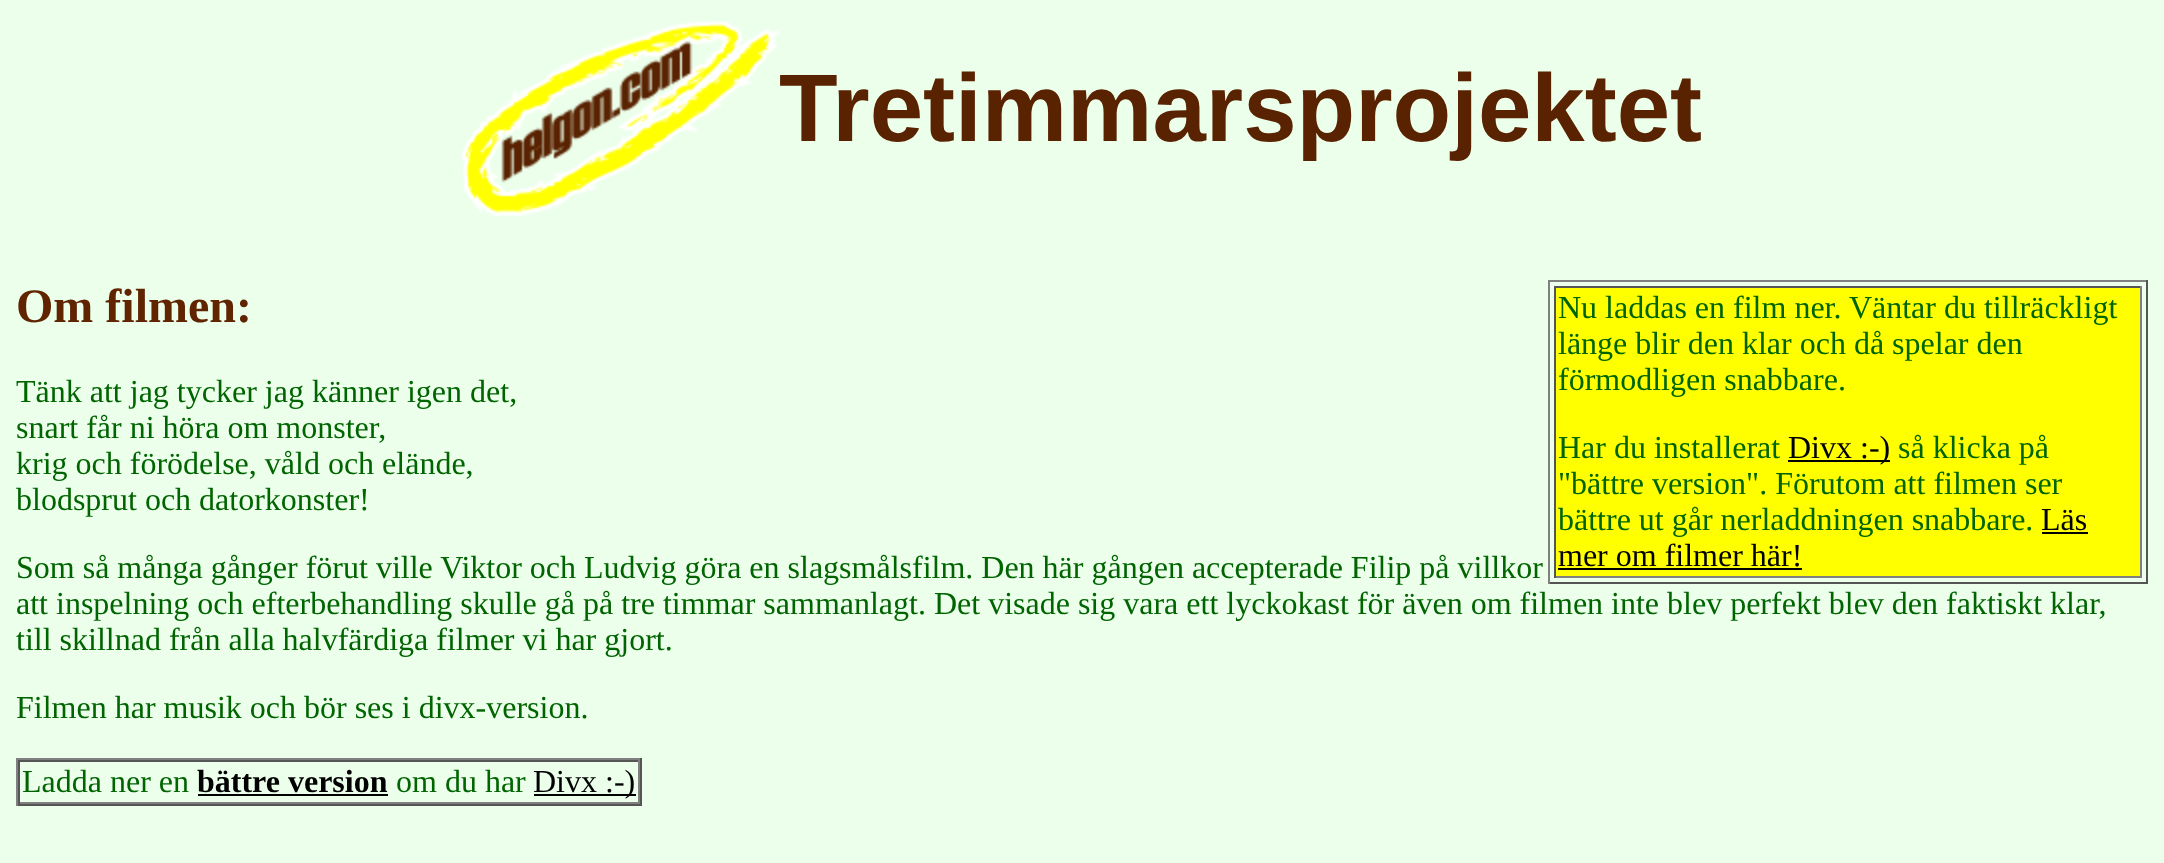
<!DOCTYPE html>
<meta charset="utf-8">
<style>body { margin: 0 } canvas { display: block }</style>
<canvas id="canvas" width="2164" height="863"></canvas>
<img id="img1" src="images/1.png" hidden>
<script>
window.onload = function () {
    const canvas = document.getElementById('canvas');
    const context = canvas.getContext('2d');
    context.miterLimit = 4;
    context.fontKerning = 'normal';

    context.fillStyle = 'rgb(235, 255, 235)';
    context.fillRect(0, 0, 2164, 863);
    context.drawImage(document.getElementById('img1'), 462, 21, 318, 195);
    context.fillStyle = 'rgb(128, 128, 128)';
    context.fillRect(1548, 280, 600, 2);
    context.fillStyle = 'rgb(85, 85, 85)';
    context.fillRect(2146, 280, 2, 304);
    context.fillRect(1548, 582, 600, 2);
    context.fillStyle = 'rgb(128, 128, 128)';
    context.fillRect(1548, 280, 2, 304);
    context.fillStyle = 'rgb(255, 255, 0)';
    context.fillRect(1556, 288, 584, 288);
    context.fillStyle = 'rgb(85, 85, 85)';
    context.fillRect(1554, 286, 588, 2);
    context.fillStyle = 'rgb(128, 128, 128)';
    context.fillRect(2140, 286, 2, 292);
    context.fillRect(1554, 576, 588, 2);
    context.fillStyle = 'rgb(85, 85, 85)';
    context.fillRect(1554, 286, 2, 292);
    context.fillStyle = 'rgb(0, 0, 0)';
    context.fillRect(1788, 460, 102, 2);
    context.fillRect(2042, 532, 46, 2);
    context.fillRect(1558, 568, 244, 2);
    context.fillStyle = 'rgb(128, 128, 128)';
    context.fillRect(16, 758, 626, 2);
    context.fillStyle = 'rgb(85, 85, 85)';
    context.fillRect(640, 758, 2, 48);
    context.fillRect(16, 804, 626, 2);
    context.fillStyle = 'rgb(128, 128, 128)';
    context.fillRect(16, 758, 2, 48);
    context.fillStyle = 'rgb(85, 85, 85)';
    context.fillRect(18, 760, 622, 2);
    context.fillStyle = 'rgb(128, 128, 128)';
    context.fillRect(638, 760, 2, 44);
    context.fillRect(18, 802, 622, 2);
    context.fillStyle = 'rgb(85, 85, 85)';
    context.fillRect(18, 760, 2, 44);
    context.fillStyle = 'rgb(0, 0, 0)';
    context.fillRect(198, 794, 190, 2);
    context.fillRect(534, 794, 102, 2);
    context.font = 'bold 96px Liberation Sans';
    context.fillStyle = 'rgb(89, 34, 0)';
    context.fillText('Tretimmarsprojektet', 779, 141);
    context.font = 'bold 48px Liberation Serif';
    context.fillStyle = 'rgb(96, 36, 0)';
    context.fillText('Om filmen:', 16, 322);
    context.font = '32px Liberation Serif';
    context.fillStyle = 'rgb(0, 100, 0)';
    context.fillText('Nu laddas en film ner. Väntar du tillräckligt', 1558, 318);
    context.fillText('länge blir den klar och då spelar den', 1558, 354);
    context.fillText('förmodligen snabbare.', 1558, 390);
    context.fillText('Har du installerat', 1558, 458);
    context.fillStyle = 'rgb(0, 0, 0)';
    context.fillText('Divx :-)', 1788, 458);
    context.fillStyle = 'rgb(0, 100, 0)';
    context.fillText('så klicka på', 1898, 458);
    context.fillText('"bättre version". Förutom att filmen ser', 1558, 494);
    context.fillText('bättre ut går nerladdningen snabbare.', 1558, 530);
    context.fillStyle = 'rgb(0, 0, 0)';
    context.fillText('Läs', 2041, 530);
    context.fillText('mer om filmer här!', 1558, 566);
    context.fillStyle = 'rgb(0, 100, 0)';
    context.fillText('Tänk att jag tycker jag känner igen det,', 16, 402);
    context.fillText('snart får ni höra om monster,', 16, 438);
    context.fillText('krig och förödelse, våld och elände,', 16, 474);
    context.fillText('blodsprut och datorkonster!', 16, 510);
    context.fillText('Som så många gånger förut ville Viktor och Ludvig göra en slagsmålsfilm. Den här gången accepterade Filip på villkor', 16, 578);
    context.fillText('att inspelning och efterbehandling skulle gå på tre timmar sammanlagt. Det visade sig vara ett lyckokast för även om filmen inte blev perfekt blev den faktiskt klar,', 16, 614);
    context.fillText('till skillnad från alla halvfärdiga filmer vi har gjort.', 16, 650);
    context.fillText('Filmen har musik och bör ses i divx-version.', 16, 718);
    context.fillText('Ladda ner en', 22, 792);
    context.font = 'bold 32px Liberation Serif';
    context.fillStyle = 'rgb(0, 0, 0)';
    context.fillText('bättre version', 197, 792);
    context.font = '32px Liberation Serif';
    context.fillStyle = 'rgb(0, 100, 0)';
    context.fillText('om du har', 396, 792);
    context.fillStyle = 'rgb(0, 0, 0)';
    context.fillText('Divx :-)', 533, 792);
};
</script>
